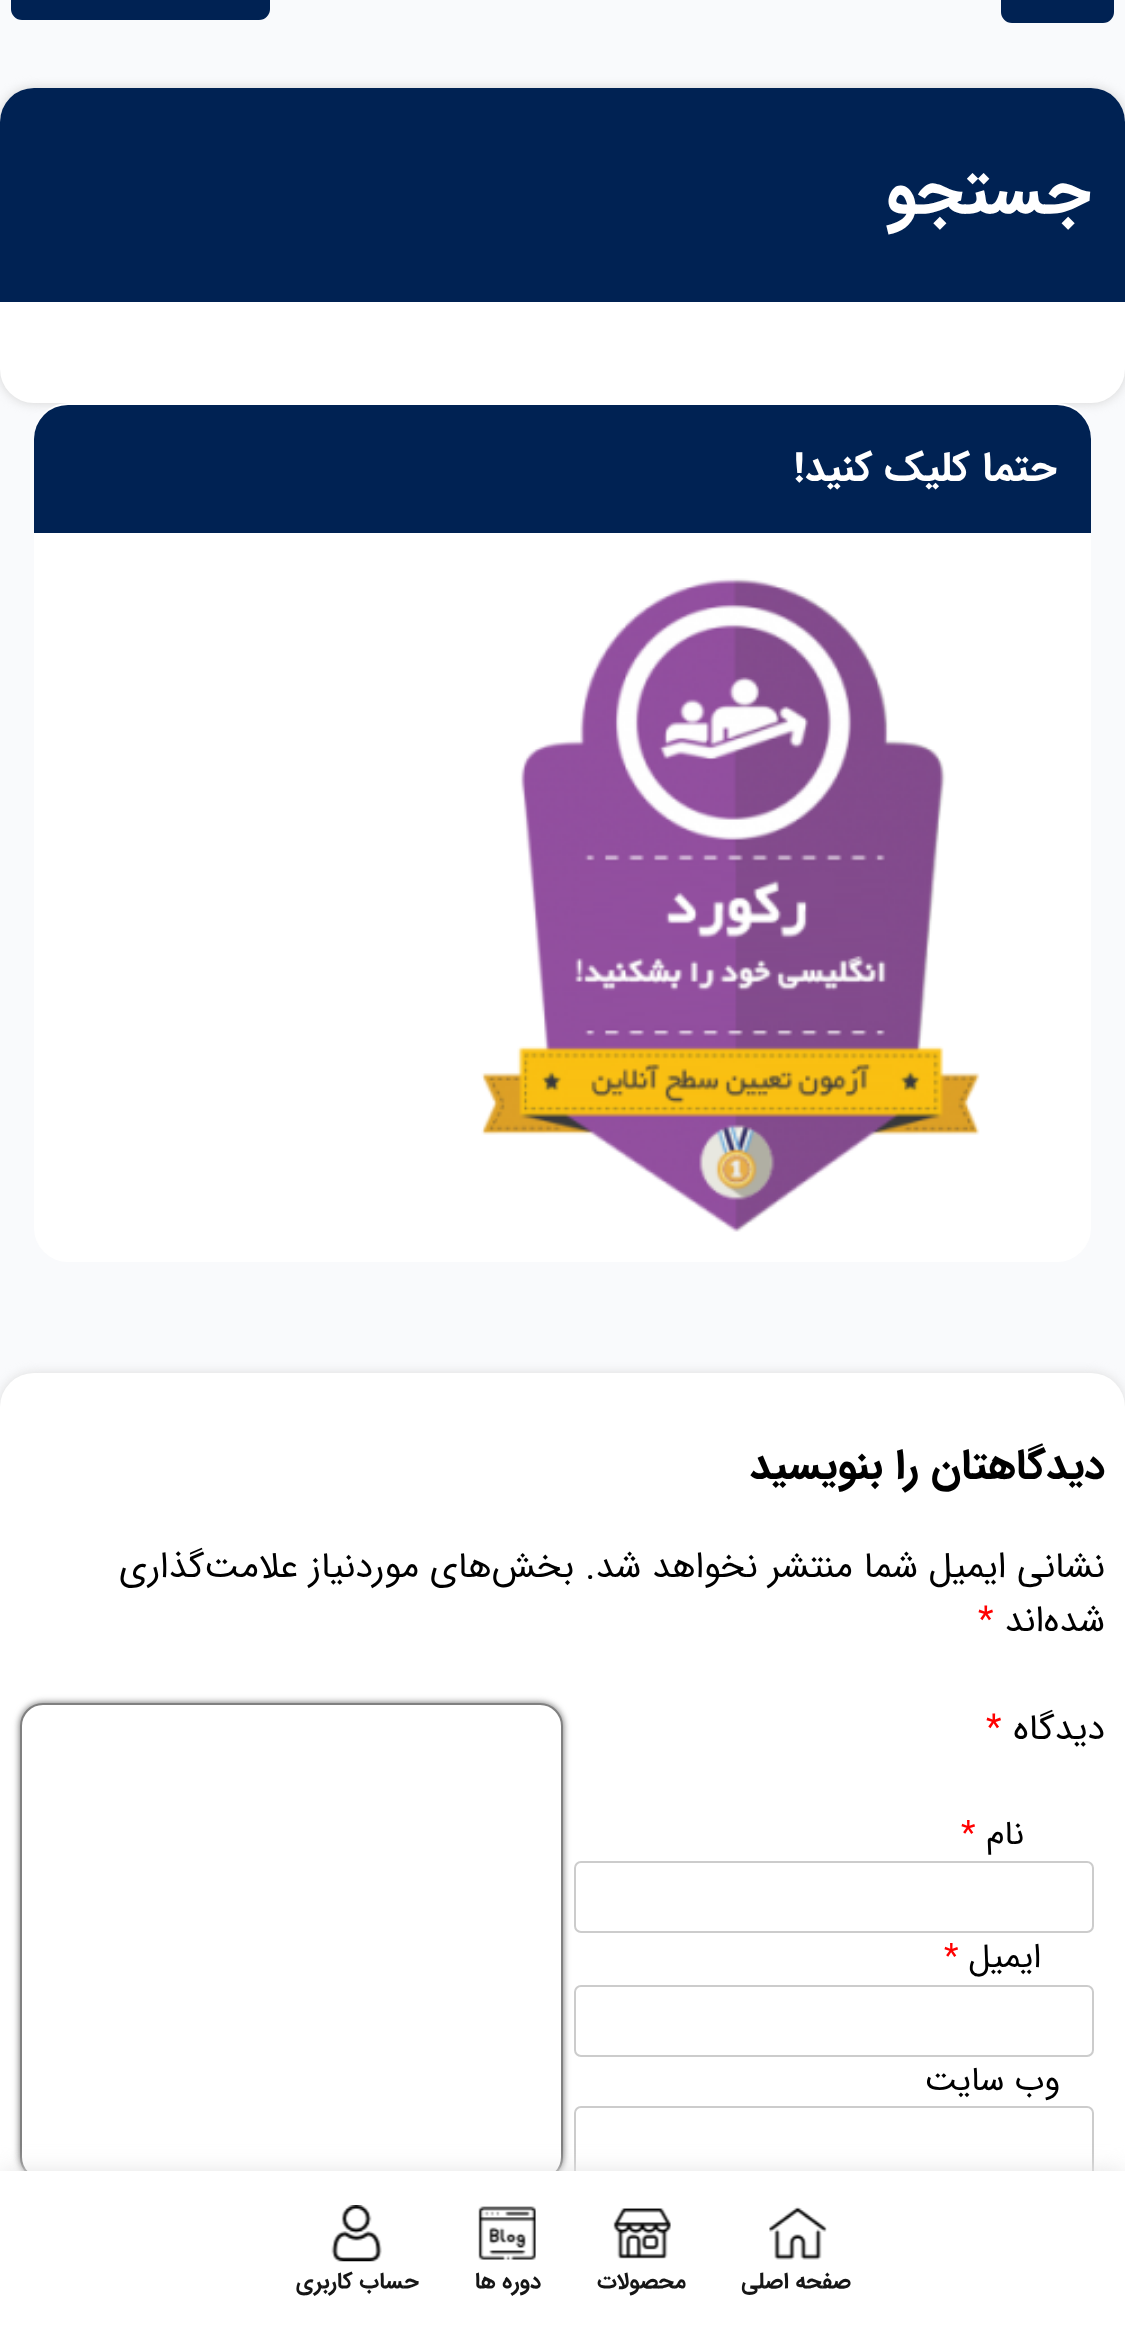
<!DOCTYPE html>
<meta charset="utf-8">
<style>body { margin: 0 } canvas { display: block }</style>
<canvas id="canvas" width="1125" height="2339"></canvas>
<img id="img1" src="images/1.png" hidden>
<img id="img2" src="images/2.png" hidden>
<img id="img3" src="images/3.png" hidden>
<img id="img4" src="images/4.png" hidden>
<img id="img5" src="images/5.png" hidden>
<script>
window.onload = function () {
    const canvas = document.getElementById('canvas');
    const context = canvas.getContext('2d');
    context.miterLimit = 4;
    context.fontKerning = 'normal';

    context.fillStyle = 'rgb(249, 250, 252)';
    context.fillRect(0, 0, 1125, 2339);
    context.fillStyle = 'rgb(0, 34, 83)';
    context.beginPath();
    context.roundRect(1002, -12, 111, 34, 10);
    context.fill();
    context.strokeStyle = 'rgb(0, 34, 83)';
    context.lineWidth = 2;
    context.stroke();
    context.beginPath();
    context.roundRect(11, -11, 259, 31, 11);
    context.fill();
    context.fillStyle = 'rgb(211, 211, 211)';
    context.filter = 'blur(5.5px)';
    context.beginPath();
    context.roundRect(0, 88, 1125, 315, 34);
    context.fill();
    context.filter = 'none';
    context.fillStyle = 'rgb(255, 255, 255)';
    context.beginPath();
    context.roundRect(0, 88, 1125, 315, 34);
    context.fill();
    context.fillStyle = 'rgb(0, 34, 83)';
    context.beginPath();
    context.roundRect(0, 88, 1125, 214, [34, 34, 0, 0]);
    context.fill();
    context.fillStyle = 'rgb(255, 255, 255)';
    context.beginPath();
    context.roundRect(34, 403, 1057, 859, 34);
    context.fill();
    context.fillStyle = 'rgb(0, 34, 83)';
    context.beginPath();
    context.roundRect(34, 405, 1057, 128, [34, 34, 0, 0]);
    context.fill();
    context.drawImage(document.getElementById('img1'), 481, 578, 499, 654);
    context.fillStyle = 'rgb(220, 220, 220)';
    context.filter = 'blur(5.5px)';
    context.beginPath();
    context.roundRect(0, 1373, 1125, 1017, 34);
    context.fill();
    context.filter = 'none';
    context.fillStyle = 'rgb(255, 255, 255)';
    context.beginPath();
    context.roundRect(0, 1373, 1125, 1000, 34);
    context.fill();
    context.beginPath();
    context.roundRect(575, 1862, 518, 70, 6);
    context.strokeStyle = 'rgb(204, 204, 204)';
    context.stroke();
    context.beginPath();
    context.roundRect(575, 1986, 518, 70, 6);
    context.stroke();
    context.beginPath();
    context.roundRect(575, 2107, 518, 70, 6);
    context.stroke();
    context.fillStyle = 'rgb(102, 102, 102)';
    context.filter = 'blur(3.5px)';
    context.beginPath();
    context.roundRect(20, 1703, 543, 477, 23);
    context.fill();
    context.filter = 'none';
    context.fillStyle = 'rgb(255, 255, 255)';
    context.beginPath();
    context.roundRect(21, 1704, 541, 475, 22);
    context.fill();
    context.strokeStyle = 'rgb(128, 128, 128)';
    context.stroke();
    context.fillStyle = 'rgb(229, 229, 229)';
    context.filter = 'blur(11px)';
    context.beginPath();
    context.rect(0, 2171, 1125, 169);
    context.fill();
    context.filter = 'none';
    context.fillStyle = 'rgb(255, 255, 255)';
    context.fillRect(0, 2171, 1125, 168);
    context.drawImage(document.getElementById('img2'), 769, 2206, 58, 54);
    context.drawImage(document.getElementById('img3'), 613, 2208, 58, 51);
    context.drawImage(document.getElementById('img4'), 478, 2206, 58, 54);
    context.drawImage(document.getElementById('img5'), 331, 2205, 51, 57);
    context.direction = 'rtl';
    context.font = 'bold 67.5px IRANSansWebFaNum';
    context.fillText('جستجو', 1091, 212);
    context.font = 'bold 40.5px IRANSansWebFaNum';
    context.fillText('حتما کلیک کنید!', 1057, 480);
    context.font = 'bold 42.1px IRANSansWebFaNum';
    context.fillStyle = 'rgb(0, 0, 0)';
    context.fillText('دیدگاهتان را بنویسید', 1105, 1478);
    context.font = '36px IRANSansWebFaNum';
    context.fillText('نشانی ایمیل شما منتشر نخواهد شد.', 1105, 1577);
    context.fillText('بخش‌های موردنیاز علامت‌گذاری', 574, 1577);
    context.fillText('شده‌اند', 1105, 1631);
    context.direction = 'ltr';
    context.fillStyle = 'rgb(255, 0, 0)';
    context.fillText('*', 978, 1631);
    context.direction = 'rtl';
    context.fillStyle = 'rgb(0, 0, 0)';
    context.fillText('دیدگاه', 1105, 1739);
    context.direction = 'ltr';
    context.fillStyle = 'rgb(255, 0, 0)';
    context.fillText('*', 986, 1739);
    context.direction = 'rtl';
    context.font = '33.75px IRANSansWebFaNum';
    context.fillStyle = 'rgb(0, 0, 0)';
    context.fillText('نام', 1024, 1844);
    context.direction = 'ltr';
    context.fillStyle = 'rgb(255, 0, 0)';
    context.fillText('*', 961, 1844);
    context.direction = 'rtl';
    context.fillStyle = 'rgb(0, 0, 0)';
    context.fillText('ایمیل', 1041, 1967);
    context.direction = 'ltr';
    context.fillStyle = 'rgb(255, 0, 0)';
    context.fillText('*', 944, 1967);
    context.direction = 'rtl';
    context.fillStyle = 'rgb(0, 0, 0)';
    context.fillText('وب‌ سایت', 1060, 2090);
    context.font = 'bold 22.5px IRANSansWebFaNum';
    context.fillStyle = 'rgb(22, 22, 22)';
    context.fillText('صفحه اصلی', 851, 2288);
    context.fillText('محصولات', 686, 2288);
    context.fillText('دوره ها', 541, 2288);
    context.fillText('حساب کاربری', 419, 2288);
};
</script>
